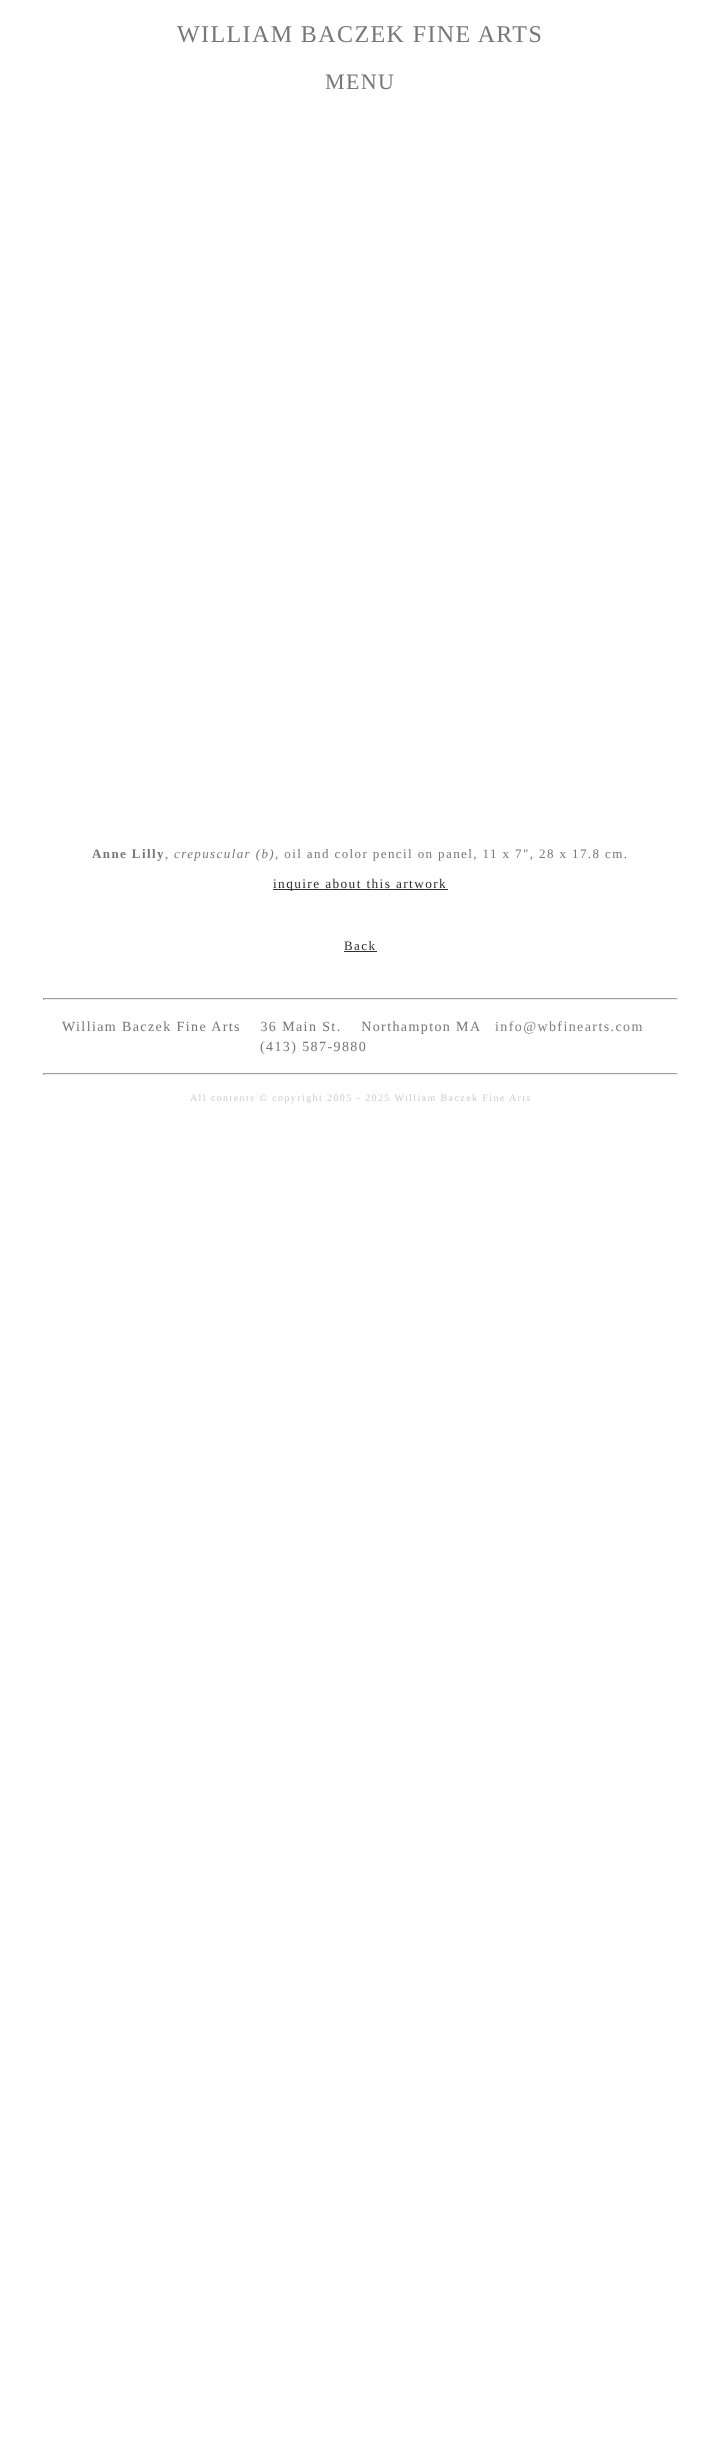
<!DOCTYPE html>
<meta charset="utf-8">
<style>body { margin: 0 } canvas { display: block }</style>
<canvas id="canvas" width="721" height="2439"></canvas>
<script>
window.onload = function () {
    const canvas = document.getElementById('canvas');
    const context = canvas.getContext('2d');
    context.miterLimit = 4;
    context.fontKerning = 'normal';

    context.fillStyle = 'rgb(255, 255, 255)';
    context.fillRect(0, 0, 721, 2439);
    context.fillStyle = 'rgb(49, 47, 47)';
    context.fillRect(273, 889, 175, 1);
    context.fillRect(344, 951, 33, 1);
    context.fillStyle = 'rgb(159, 159, 159)';
    context.fillRect(43, 998, 635, 1);
    context.fillStyle = 'rgb(238, 238, 238)';
    context.fillRect(677, 998, 1, 2);
    context.fillRect(43, 999, 635, 1);
    context.fillStyle = 'rgb(159, 159, 159)';
    context.fillRect(43, 998, 1, 2);
    context.fillRect(43, 1073, 635, 1);
    context.fillStyle = 'rgb(238, 238, 238)';
    context.fillRect(677, 1073, 1, 2);
    context.fillRect(43, 1074, 635, 1);
    context.fillStyle = 'rgb(159, 159, 159)';
    context.fillRect(43, 1073, 1, 2);
    context.letterSpacing = '1.4px';
    context.font = '24px Liberation Serif';
    context.fillStyle = 'rgb(119, 119, 119)';
    context.fillText('WILLIAM BACZEK FINE ARTS', 177, 42);
    context.font = '22px Liberation Serif';
    context.fillText('MENU', 325, 89);
    context.font = 'bold 13px Liberation Serif';
    context.fillText('Anne Lilly', 92, 858);
    context.font = '13px Liberation Serif';
    context.fillText(',', 165, 858);
    context.font = 'italic 13px Liberation Serif';
    context.fillText('crepuscular (b)', 174, 858);
    context.font = '13px Liberation Serif';
    context.fillText(', oil and color pencil on panel, 11 x 7", 28 x 17.8 cm.', 275, 858);
    context.font = '13.3px Liberation Serif';
    context.fillStyle = 'rgb(49, 47, 47)';
    context.fillText('inquire about this artwork', 273, 888);
    context.font = '13px Liberation Serif';
    context.fillText('Back', 344, 950);
    context.font = '14px Liberation Serif';
    context.fillStyle = 'rgb(119, 119, 119)';
    context.fillText('William Baczek Fine Arts    36 Main St.    Northampton MA', 62, 1031);
    context.fillStyle = 'rgb(128, 128, 128)';
    context.fillText('info@wbfinearts.com', 495, 1031);
    context.fillStyle = 'rgb(119, 119, 119)';
    context.fillText('(413) 587-9880', 260, 1051);
    context.font = '10px Liberation Serif';
    context.fillStyle = 'rgb(204, 204, 204)';
    context.fillText('All contents © copyright 2005 - 2025 William Baczek Fine Arts', 190, 1101);
};
</script>
